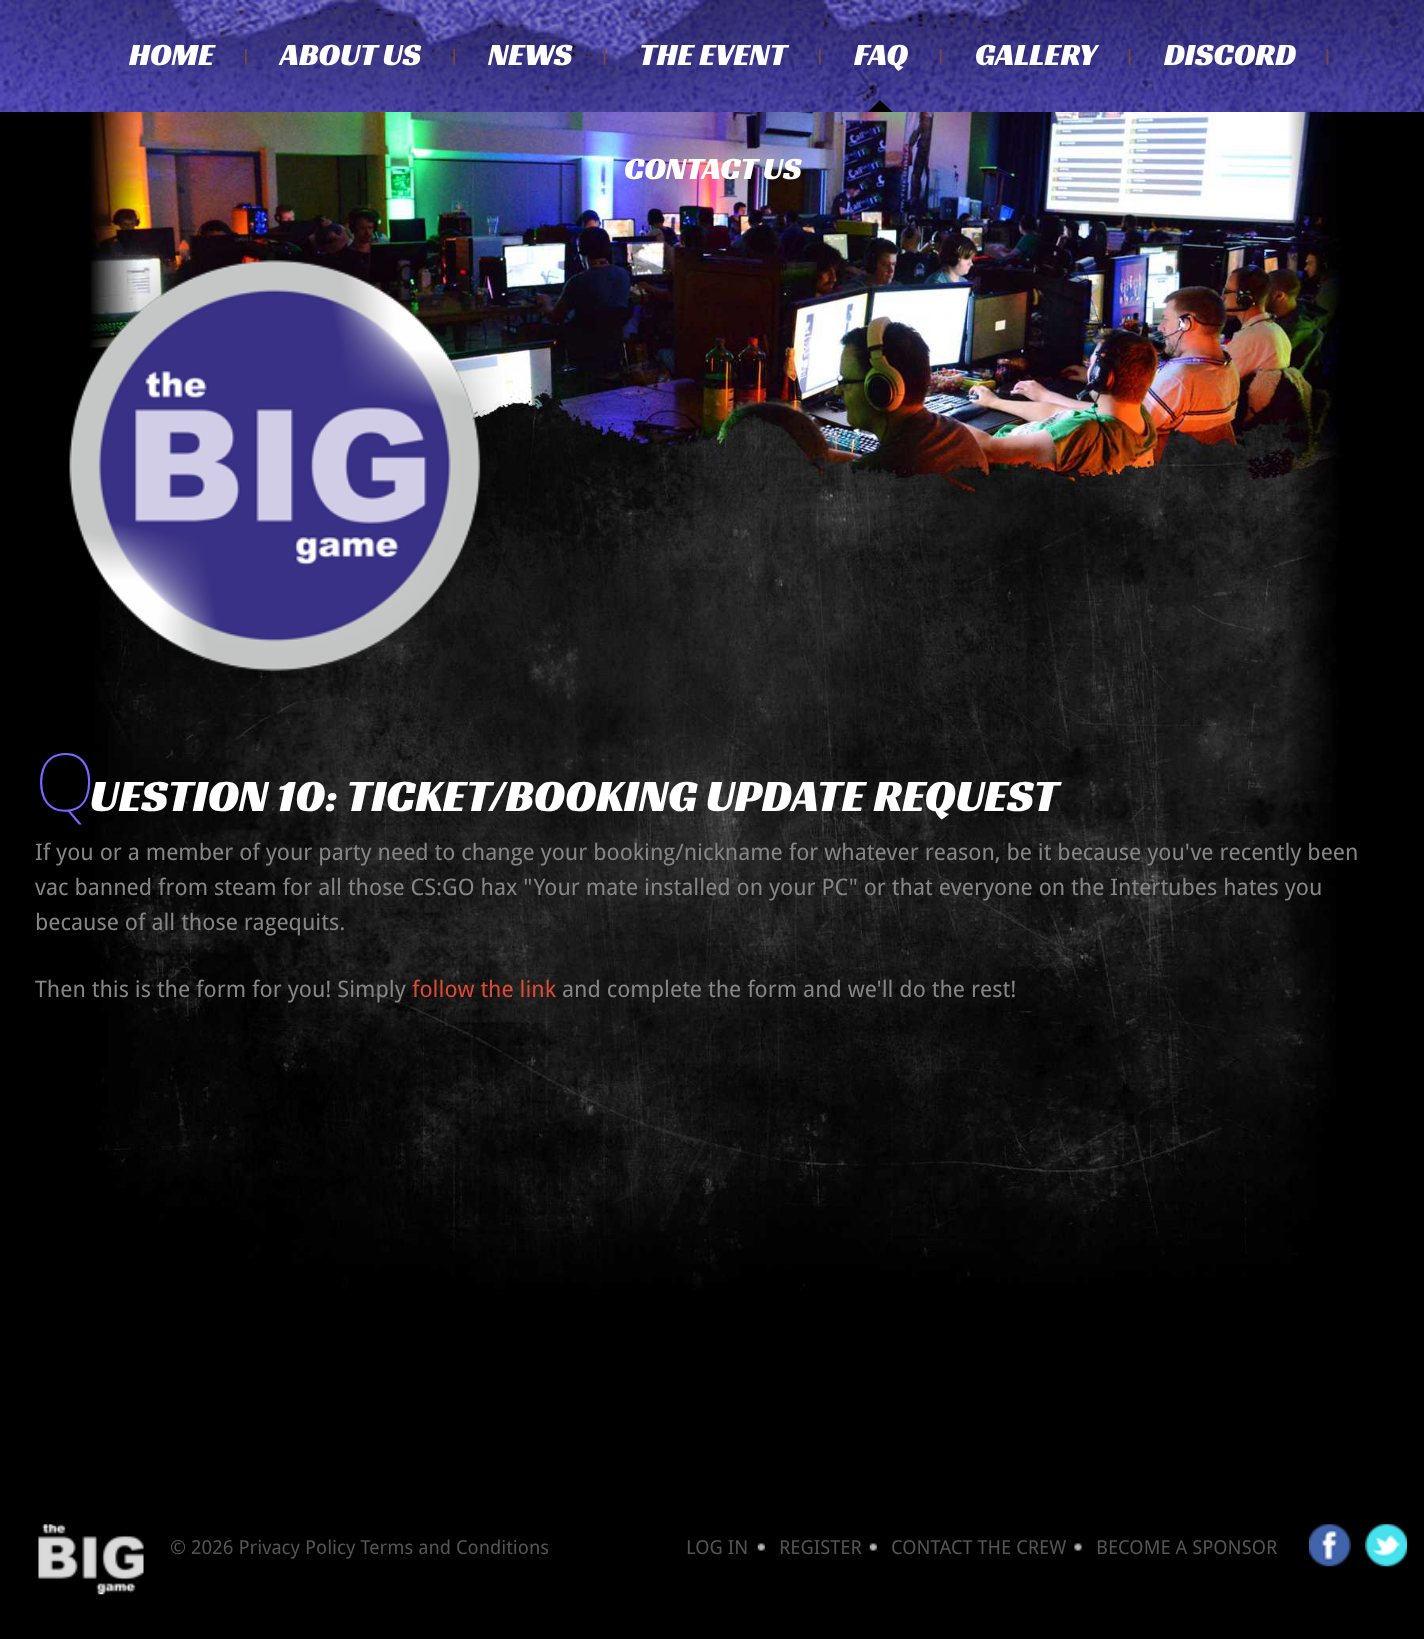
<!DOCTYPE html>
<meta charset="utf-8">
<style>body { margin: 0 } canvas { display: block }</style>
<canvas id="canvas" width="1424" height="1639"></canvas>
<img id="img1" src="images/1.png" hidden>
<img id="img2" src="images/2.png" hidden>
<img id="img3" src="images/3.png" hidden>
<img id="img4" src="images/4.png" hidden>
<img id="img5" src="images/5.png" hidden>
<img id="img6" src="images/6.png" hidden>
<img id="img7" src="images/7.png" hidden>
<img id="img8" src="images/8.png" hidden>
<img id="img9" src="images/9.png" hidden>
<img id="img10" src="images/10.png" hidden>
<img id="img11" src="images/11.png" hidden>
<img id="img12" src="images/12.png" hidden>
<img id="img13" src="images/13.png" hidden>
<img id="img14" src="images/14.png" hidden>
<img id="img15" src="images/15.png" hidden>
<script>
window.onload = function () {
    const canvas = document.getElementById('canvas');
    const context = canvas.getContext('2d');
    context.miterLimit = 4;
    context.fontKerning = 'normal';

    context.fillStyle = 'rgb(0, 0, 0)';
    context.fillRect(0, 0, 1424, 1639);
    context.drawImage(document.getElementById('img1'), 89, 112, 1253, 1178);
    context.drawImage(document.getElementById('img2'), 0, 0, 1424, 112);
    context.drawImage(document.getElementById('img3'), 245, 49, 2, 16);
    context.drawImage(document.getElementById('img4'), 453, 49, 2, 16);
    context.drawImage(document.getElementById('img5'), 603, 49, 3, 16);
    context.drawImage(document.getElementById('img6'), 819, 49, 2, 16);
    context.drawImage(document.getElementById('img7'), 939, 49, 3, 16);
    context.fillStyle = 'rgb(2, 2, 2)';
    context.beginPath();
    context.moveTo(892.5, 112);
    context.lineTo(868, 112);
    context.lineTo(880, 100);
    context.closePath();
    context.fill();
    context.drawImage(document.getElementById('img8'), 1128, 49, 3, 16);
    context.drawImage(document.getElementById('img9'), 1326, 49, 3, 16);
    context.drawImage(document.getElementById('img10'), 69, 240, 433, 438);
    context.drawImage(document.getElementById('img11'), 38, 1524, 106, 71);
    context.drawImage(document.getElementById('img12'), 757, 1543, 8, 8);
    context.drawImage(document.getElementById('img12'), 869, 1543, 8, 8);
    context.drawImage(document.getElementById('img13'), 1074, 1543, 8, 8);
    context.drawImage(document.getElementById('img14'), 1309, 1524, 42, 43);
    context.drawImage(document.getElementById('img15'), 1365, 1524, 42, 43);
    context.font = '31.5px Racing Sans One';
    context.fillStyle = 'rgb(255, 255, 255)';
    context.fillText('HOME', 129, 65);
    context.fillText('ABOUT US', 280, 65);
    context.fillText('NEWS', 488, 65);
    context.fillText('THE EVENT', 639, 65);
    context.fillText('FAQ', 854, 65);
    context.fillText('GALLERY', 975, 65);
    context.fillText('DISCORD', 1164, 65);
    context.fillText('CONTACT US', 624, 179);
    context.font = '100 80px Noto Sans';
    context.fillStyle = 'rgb(121, 103, 255)';
    context.fillText('Q', 35, 811);
    context.font = '45.5px Racing Sans One';
    context.fillStyle = 'rgb(255, 255, 255)';
    context.fillText('UESTION 10:', 90, 811);
    context.fillText('TICKET/BOOKING UPDATE REQUEST', 346, 811);
    context.font = '22.75px Droid Sans';
    context.fillStyle = 'rgb(133, 133, 133)';
    context.fillText('If you or a member of your party need to change your booking/nickname for whatever reason, be it because you\'ve recently been', 35, 860);
    context.fillText('vac banned from steam for all those CS:GO hax "Your mate installed on your PC" or that everyone on the Intertubes hates you', 35, 895);
    context.fillText('because of all those ragequits.', 35, 930);
    context.fillText('Then this is the form for you! Simply', 35, 997);
    context.fillStyle = 'rgb(220, 76, 51)';
    context.fillText('follow the link', 412, 997);
    context.fillStyle = 'rgb(133, 133, 133)';
    context.fillText('and complete the form and we\'ll do the rest!', 562, 997);
    context.font = '19.25px Droid Sans';
    context.fillStyle = 'rgb(84, 84, 84)';
    context.fillText('© 2026 Privacy Policy Terms and Conditions', 170, 1554);
    context.fillText('LOG IN', 686, 1554);
    context.fillText('REGISTER', 779, 1554);
    context.fillText('CONTACT THE CREW', 891, 1554);
    context.fillText('BECOME A SPONSOR', 1096, 1554);
};
</script>
